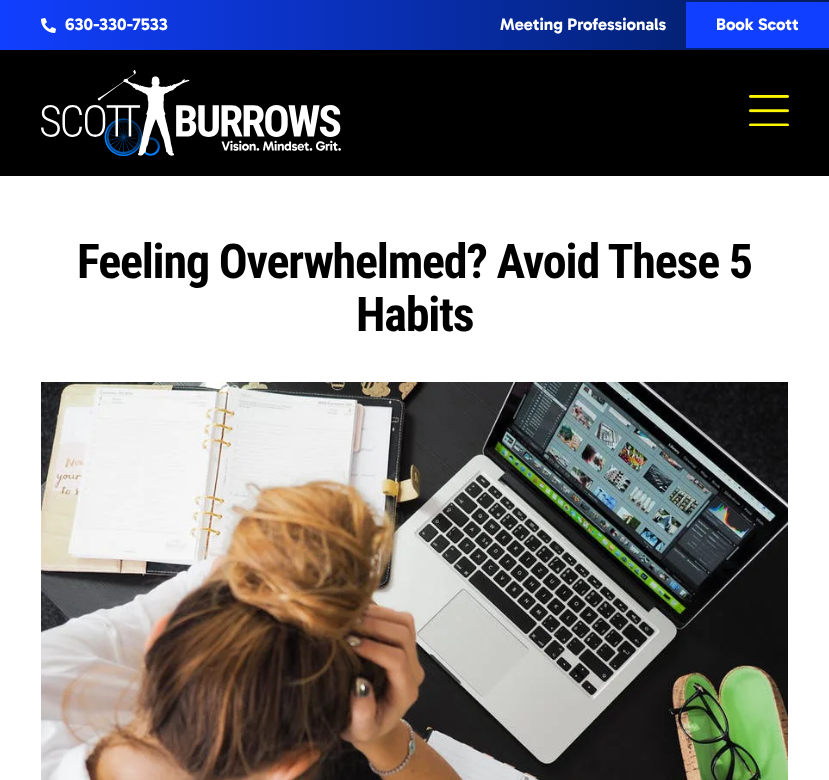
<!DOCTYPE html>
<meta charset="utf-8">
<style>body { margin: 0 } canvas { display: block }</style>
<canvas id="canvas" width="829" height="780"></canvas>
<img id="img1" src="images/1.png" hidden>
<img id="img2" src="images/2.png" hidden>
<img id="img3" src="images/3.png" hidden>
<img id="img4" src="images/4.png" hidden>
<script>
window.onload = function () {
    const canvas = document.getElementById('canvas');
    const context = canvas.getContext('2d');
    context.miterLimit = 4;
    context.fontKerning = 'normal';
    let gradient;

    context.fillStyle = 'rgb(0, 0, 0)';
    context.fillRect(0, 0, 829, 780);
    gradient = context.createLinearGradient(0, 25, 829, 25);
    gradient.addColorStop(0, 'rgb(17, 63, 255)');
    gradient.addColorStop(1, 'rgb(0, 28, 90)');
    context.fillStyle = gradient;
    context.fillRect(0, 0, 829, 50);
    context.drawImage(document.getElementById('img1'), 41, 18, 15, 15);
    context.fillStyle = 'rgb(17, 63, 255)';
    context.fillRect(686, 2, 143, 46);
    context.drawImage(document.getElementById('img2'), 41, 70, 300, 86);
    context.drawImage(document.getElementById('img3'), 749, 95, 40, 31);
    context.fillStyle = 'rgb(255, 255, 255)';
    context.fillRect(0, 176, 829, 604);
    context.drawImage(document.getElementById('img4'), 41, 382, 747, 398);
    context.font = 'bold 17px Gabarito';
    context.fillText('630-330-7533', 65, 30);
    context.fillText('Meeting Professionals', 500, 30);
    context.fillText('Book Scott', 716, 30);
    context.letterSpacing = '-1.2px';
    context.font = 'bold 48px Roboto Condensed';
    context.fillStyle = 'rgb(0, 0, 0)';
    context.fillText('Feeling Overwhelmed? Avoid These 5', 77, 278);
    context.fillText('Habits', 356, 331);
};
</script>
